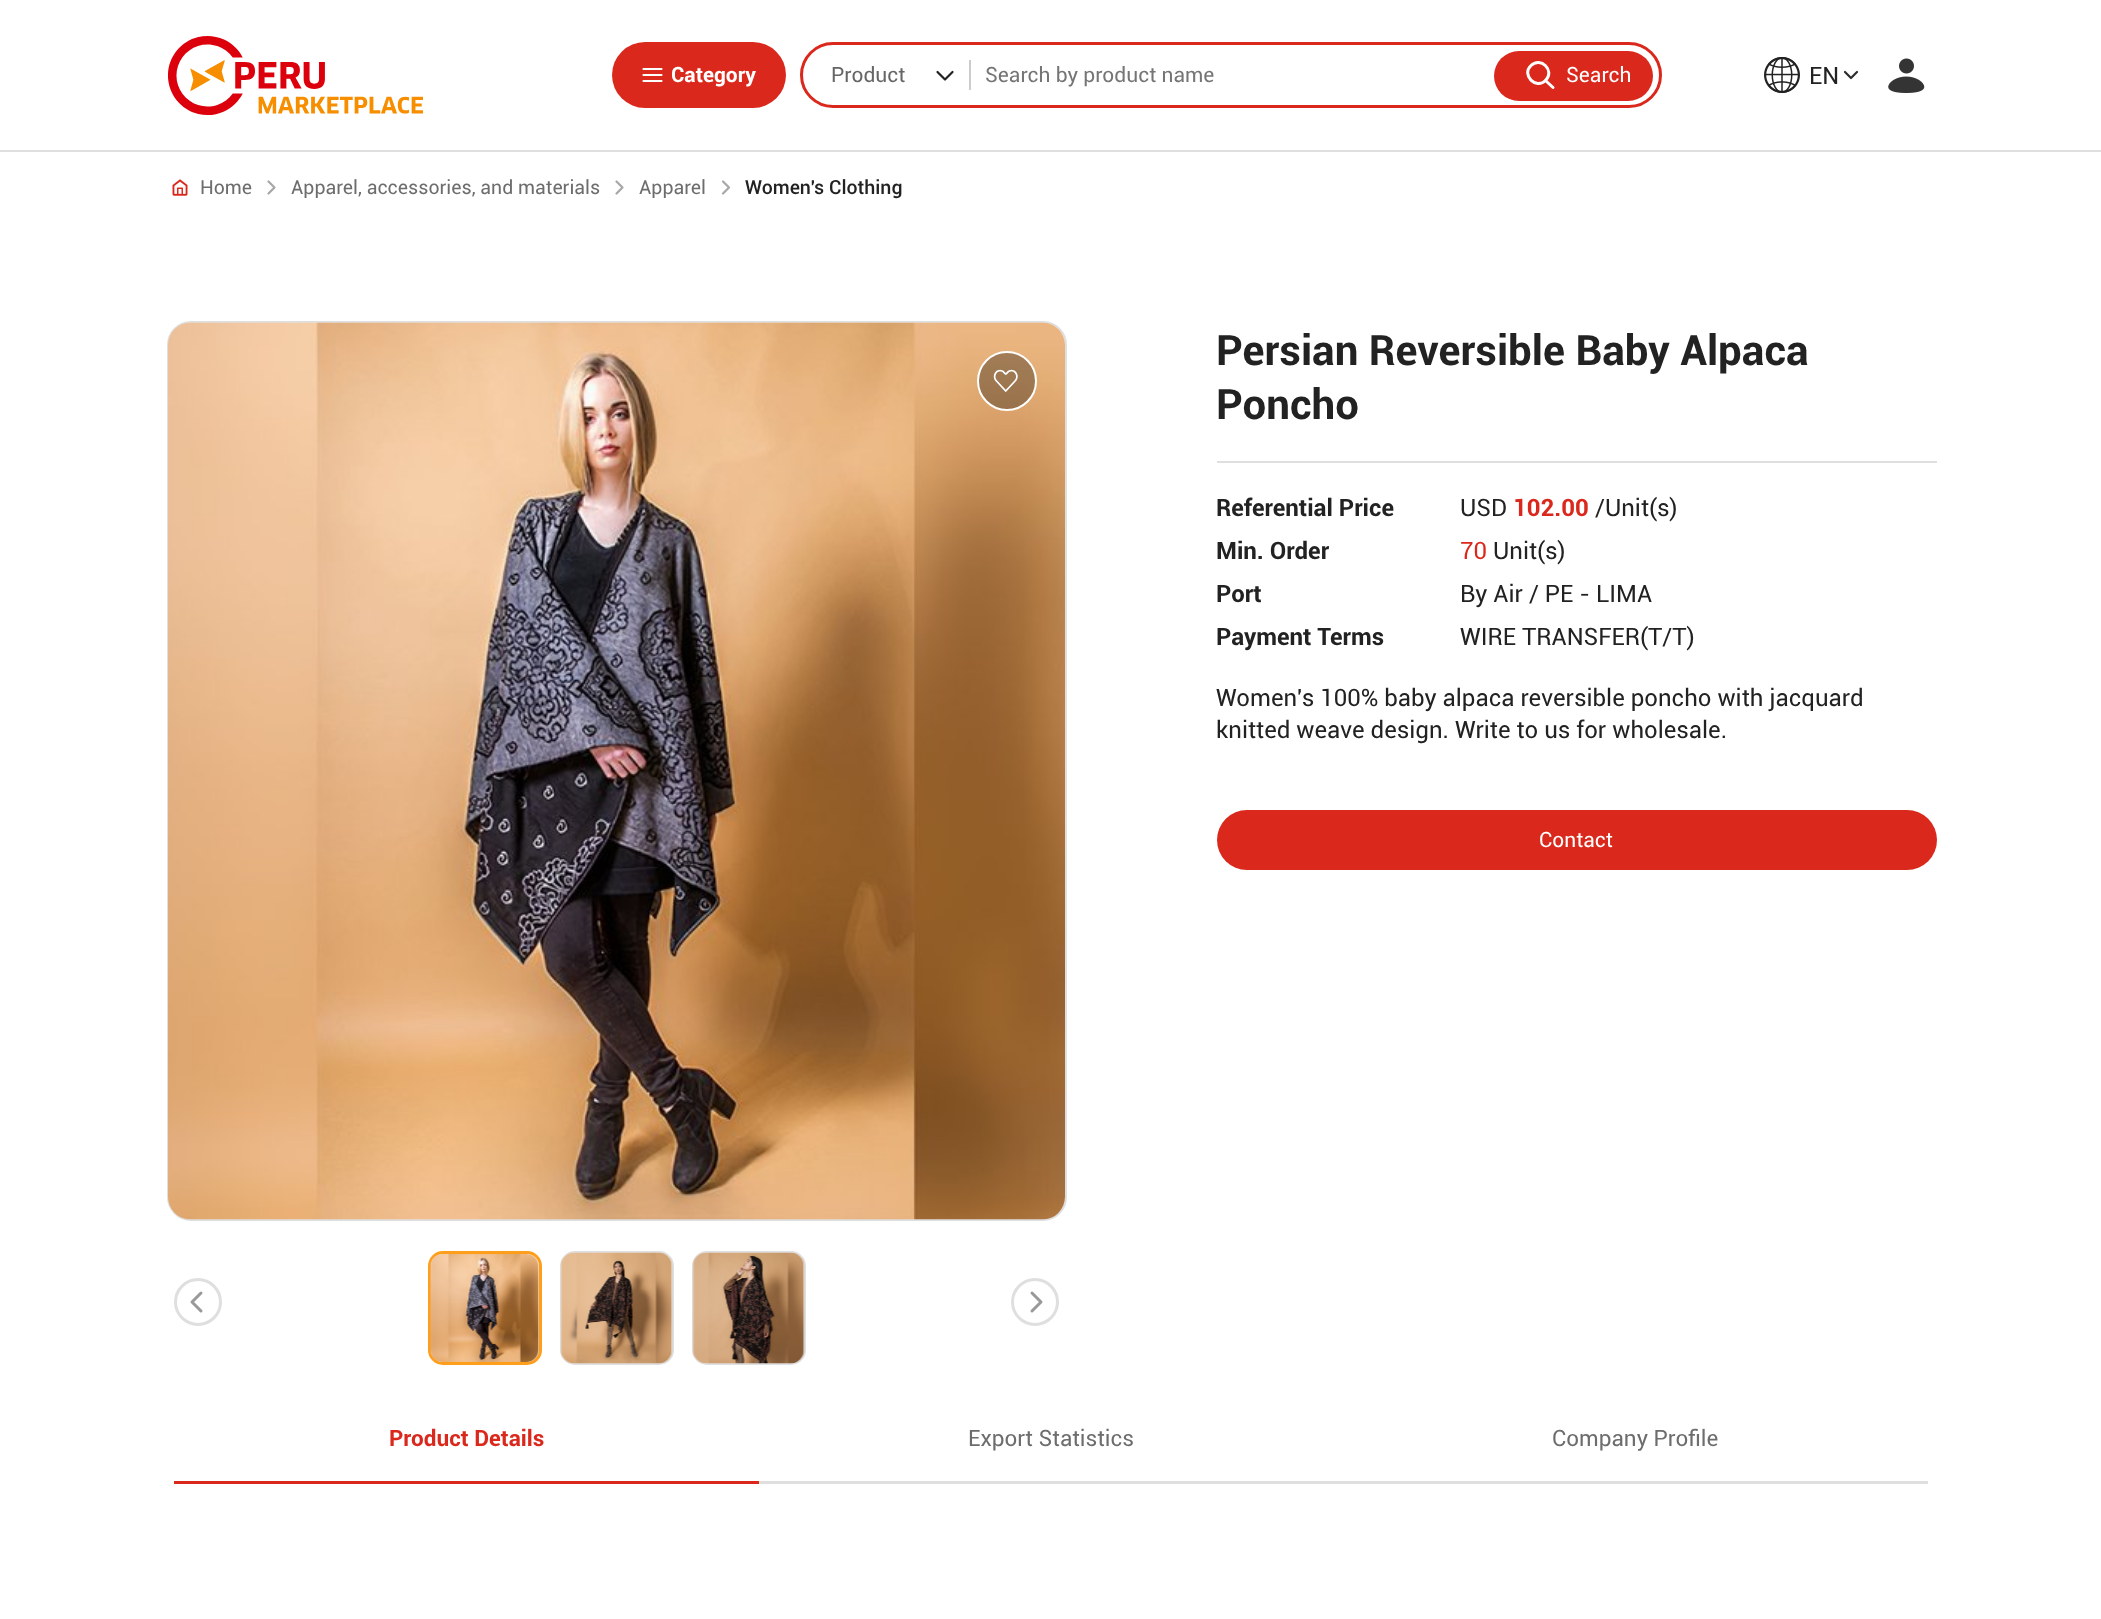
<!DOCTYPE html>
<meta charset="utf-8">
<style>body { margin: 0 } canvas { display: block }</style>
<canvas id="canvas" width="2101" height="1619"></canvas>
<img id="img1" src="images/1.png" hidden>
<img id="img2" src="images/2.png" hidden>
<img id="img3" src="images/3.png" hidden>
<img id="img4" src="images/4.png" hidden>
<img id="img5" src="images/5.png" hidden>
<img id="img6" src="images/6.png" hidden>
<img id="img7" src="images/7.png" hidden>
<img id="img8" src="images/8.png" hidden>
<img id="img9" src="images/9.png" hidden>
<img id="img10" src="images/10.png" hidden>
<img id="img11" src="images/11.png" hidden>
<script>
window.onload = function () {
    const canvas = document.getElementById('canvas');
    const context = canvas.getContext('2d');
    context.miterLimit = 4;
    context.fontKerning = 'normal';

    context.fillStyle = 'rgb(255, 255, 255)';
    context.fillRect(0, 0, 2101, 1619);
    context.fillStyle = 'rgb(223, 223, 223)';
    context.fillRect(0, 150, 2101, 2);
    context.drawImage(document.getElementById('img1'), 168, 36, 255, 79);
    context.fillStyle = 'rgb(218, 41, 28)';
    context.beginPath();
    context.roundRect(612, 42, 174, 66, 33);
    context.fill();
    context.beginPath();
    context.moveTo(643.5, 69);
    context.lineTo(661.5, 69);
    context.moveTo(643.5, 75);
    context.lineTo(661.5, 75);
    context.moveTo(643.5, 81);
    context.lineTo(661.5, 81);
    context.strokeStyle = 'rgb(255, 255, 255)';
    context.lineWidth = 2.2;
    context.lineCap = 'round';
    context.stroke();
    context.beginPath();
    context.roundRect(801.5, 43.5, 859, 63, 31.5);
    context.strokeStyle = 'rgb(218, 41, 28)';
    context.lineWidth = 3;
    context.stroke();
    context.beginPath();
    context.moveTo(937.5, 72);
    context.lineTo(945, 79.5);
    context.lineTo(952.5, 72);
    context.strokeStyle = 'rgb(34, 34, 34)';
    context.lineWidth = 2.2;
    context.lineJoin = 'round';
    context.stroke();
    context.fillStyle = 'rgb(204, 204, 204)';
    context.fillRect(969, 60, 2, 30);
    context.fillStyle = 'rgb(218, 41, 28)';
    context.beginPath();
    context.roundRect(1494, 51, 159, 50, 25);
    context.fill();
    context.beginPath();
    context.moveTo(1545.5, 80.5);
    context.bezierCurveTo(1555.5, 70.5, 1540.5, 56, 1531, 65.5);
    context.bezierCurveTo(1521, 75, 1536, 90, 1545.5, 80.5);
    context.closePath();
    context.strokeStyle = 'rgb(255, 255, 255)';
    context.lineWidth = 3;
    context.lineCap = 'butt';
    context.lineJoin = 'miter';
    context.stroke();
    context.beginPath();
    context.moveTo(1545.5, 80.5);
    context.lineTo(1553, 87.5);
    context.lineCap = 'round';
    context.stroke();
    context.drawImage(document.getElementById('img2'), 1764, 57, 36, 36);
    context.beginPath();
    context.moveTo(1857, 72);
    context.lineTo(1851, 78);
    context.lineTo(1845, 72);
    context.strokeStyle = 'rgb(44, 44, 44)';
    context.lineWidth = 2.2;
    context.lineJoin = 'round';
    context.stroke();
    context.drawImage(document.getElementById('img3'), 1888, 58, 37, 35);
    context.drawImage(document.getElementById('img4'), 172, 179, 16, 17);
    context.drawImage(document.getElementById('img5'), 267, 180, 9, 15);
    context.drawImage(document.getElementById('img5'), 615, 180, 9, 15);
    context.drawImage(document.getElementById('img6'), 721, 180, 10, 15);
    context.beginPath();
    context.roundRect(168, 322, 898, 898, 23);
    context.strokeStyle = 'rgb(223, 223, 223)';
    context.lineWidth = 2;
    context.lineJoin = 'miter';
    context.stroke();
    context.drawImage(document.getElementById('img7'), 168, 322, 897, 898);
    context.beginPath();
    context.arc(198, 1302, 22.5, 0, 2 * Math.PI);
    context.lineWidth = 3;
    context.stroke();
    context.beginPath();
    context.moveTo(201, 1311);
    context.lineTo(192, 1302);
    context.lineTo(201, 1293);
    context.strokeStyle = 'rgb(153, 153, 153)';
    context.lineJoin = 'round';
    context.stroke();
    context.beginPath();
    context.arc(1035, 1302, 22.5, 0, 2 * Math.PI);
    context.strokeStyle = 'rgb(223, 223, 223)';
    context.stroke();
    context.beginPath();
    context.moveTo(1032, 1311);
    context.lineTo(1041, 1302);
    context.lineTo(1032, 1293);
    context.strokeStyle = 'rgb(153, 153, 153)';
    context.stroke();
    context.fillStyle = 'rgba(0, 0, 0, 0.3)';
    context.beginPath();
    context.arc(1007, 381, 29, 0, 2 * Math.PI);
    context.fill();
    context.strokeStyle = 'rgb(255, 255, 255)';
    context.lineWidth = 2;
    context.stroke();
    context.drawImage(document.getElementById('img8'), 993, 369, 25, 24);
    context.beginPath();
    context.roundRect(429.5, 1252.5, 111, 111, 13.5);
    context.strokeStyle = 'rgb(255, 158, 27)';
    context.lineWidth = 3;
    context.lineJoin = 'miter';
    context.stroke();
    context.drawImage(document.getElementById('img9'), 430, 1254, 109, 108);
    context.beginPath();
    context.roundRect(561, 1252, 112, 112, 14);
    context.strokeStyle = 'rgb(223, 223, 223)';
    context.lineWidth = 2;
    context.stroke();
    context.drawImage(document.getElementById('img10'), 560, 1252, 113, 112);
    context.beginPath();
    context.roundRect(693, 1252, 112, 112, 14);
    context.stroke();
    context.drawImage(document.getElementById('img11'), 692, 1252, 113, 112);
    context.fillStyle = 'rgb(223, 223, 223)';
    context.fillRect(1217, 461, 720, 2);
    context.fillStyle = 'rgb(218, 41, 28)';
    context.beginPath();
    context.roundRect(1217, 810, 720, 60, 30);
    context.fill();
    context.fillRect(174, 1481, 585, 3);
    context.fillStyle = 'rgb(223, 223, 223)';
    context.fillRect(759, 1481, 1169, 3);
    context.font = 'bold 21px Roboto';
    context.fillStyle = 'rgb(255, 255, 255)';
    context.fillText('Category', 671, 82);
    context.font = '21px Roboto';
    context.fillStyle = 'rgb(102, 102, 102)';
    context.fillText('Product', 831, 82);
    context.fillStyle = 'rgb(117, 117, 117)';
    context.fillText('Search by product name', 985, 82);
    context.fillStyle = 'rgb(255, 255, 255)';
    context.fillText('Search', 1566, 82);
    context.font = '24px Roboto';
    context.fillStyle = 'rgb(34, 34, 34)';
    context.fillText('EN', 1809, 84);
    context.font = '19.5px Roboto';
    context.fillStyle = 'rgb(109, 109, 109)';
    context.fillText('Home', 200, 194);
    context.fillText('Apparel, accessories, and materials', 291, 194);
    context.fillText('Apparel', 639, 194);
    context.font = '500 19.5px Roboto';
    context.fillStyle = 'rgb(34, 34, 34)';
    context.fillText('Women\'s Clothing', 745, 194);
    context.font = 'bold 42px Roboto';
    context.fillText('Persian Reversible Baby Alpaca', 1216, 365);
    context.fillText('Poncho', 1216, 419);
    context.font = 'bold 24px Roboto';
    context.fillText('Referential Price', 1216, 516);
    context.font = '24px Roboto';
    context.fillText('USD', 1460, 516);
    context.font = 'bold 24px Roboto';
    context.fillStyle = 'rgb(218, 41, 28)';
    context.fillText('102.00', 1513, 516);
    context.font = '24px Roboto';
    context.fillStyle = 'rgb(34, 34, 34)';
    context.fillText('/Unit(s)', 1595, 516);
    context.font = 'bold 24px Roboto';
    context.fillText('Min. Order', 1216, 559);
    context.font = '24px Roboto';
    context.fillStyle = 'rgb(218, 41, 28)';
    context.fillText('70', 1460, 559);
    context.fillStyle = 'rgb(34, 34, 34)';
    context.fillText('Unit(s)', 1493, 559);
    context.font = 'bold 24px Roboto';
    context.fillText('Port', 1216, 602);
    context.font = '24px Roboto';
    context.fillText('By Air / PE - LIMA', 1460, 602);
    context.font = 'bold 24px Roboto';
    context.fillText('Payment Terms', 1216, 645);
    context.font = '24px Roboto';
    context.fillText('WIRE TRANSFER(T/T)', 1460, 645);
    context.fillText('Women\'s 100% baby alpaca reversible poncho with jacquard', 1216, 706);
    context.fillText('knitted weave design. Write to us for wholesale.', 1216, 738);
    context.font = '21px Roboto';
    context.fillStyle = 'rgb(255, 255, 255)';
    context.fillText('Contact', 1539, 847);
    context.font = 'bold 22.5px Roboto';
    context.fillStyle = 'rgb(218, 41, 28)';
    context.fillText('Product Details', 389, 1446);
    context.font = '22.5px Roboto';
    context.fillStyle = 'rgb(109, 109, 109)';
    context.fillText('Export Statistics', 968, 1446);
    context.fillText('Company Profile', 1552, 1446);
};
</script>
